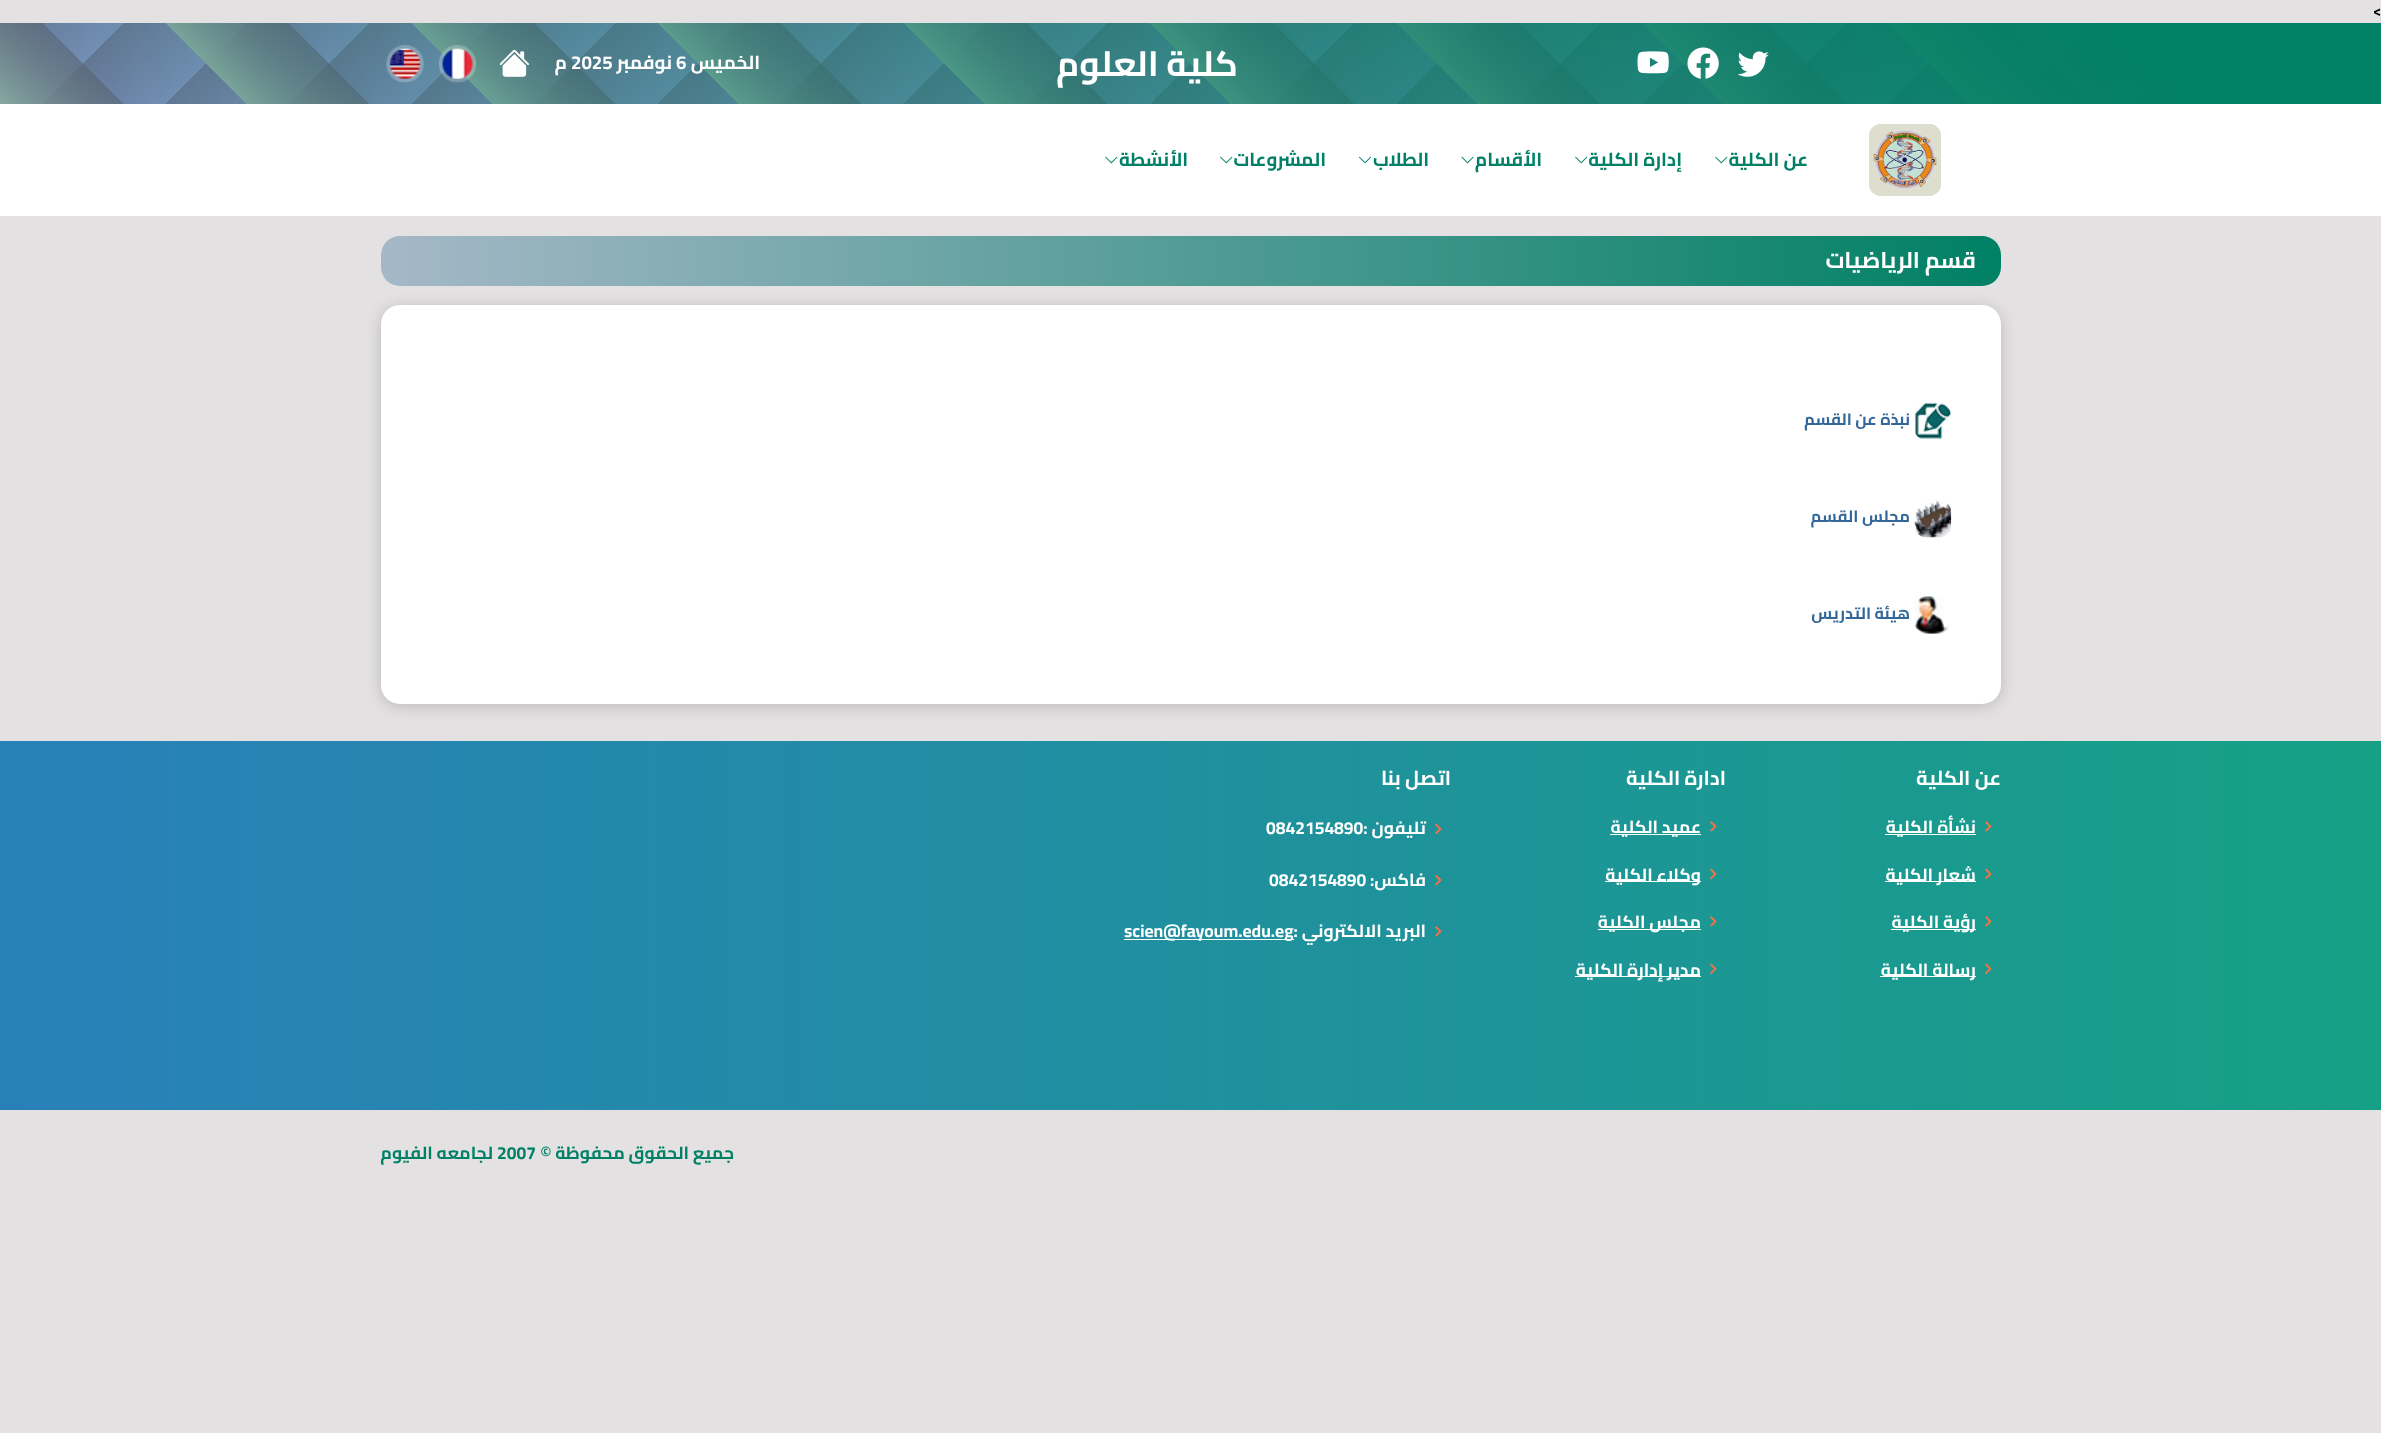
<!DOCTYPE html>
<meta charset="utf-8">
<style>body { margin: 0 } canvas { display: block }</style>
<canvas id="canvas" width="2381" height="1433"></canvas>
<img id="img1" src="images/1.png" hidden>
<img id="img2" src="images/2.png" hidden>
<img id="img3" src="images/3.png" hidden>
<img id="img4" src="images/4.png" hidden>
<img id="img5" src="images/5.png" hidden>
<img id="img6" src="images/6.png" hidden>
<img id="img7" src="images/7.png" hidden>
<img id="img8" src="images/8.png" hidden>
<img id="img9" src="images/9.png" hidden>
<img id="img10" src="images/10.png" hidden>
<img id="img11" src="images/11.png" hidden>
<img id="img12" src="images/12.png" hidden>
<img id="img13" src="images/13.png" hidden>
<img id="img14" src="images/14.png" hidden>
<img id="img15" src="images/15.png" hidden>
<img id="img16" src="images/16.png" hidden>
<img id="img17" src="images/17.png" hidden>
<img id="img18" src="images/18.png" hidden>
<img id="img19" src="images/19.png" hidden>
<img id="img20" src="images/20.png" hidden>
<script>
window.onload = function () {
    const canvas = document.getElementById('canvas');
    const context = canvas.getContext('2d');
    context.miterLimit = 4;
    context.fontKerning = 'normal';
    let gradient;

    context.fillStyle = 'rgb(227, 225, 225)';
    context.fillRect(0, 0, 2381, 1433);
    gradient = context.createLinearGradient(1806, 679, 575, -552);
    gradient.addColorStop(0, 'rgb(121, 143, 185)');
    gradient.addColorStop(0.05, 'rgb(105, 118, 150)');
    gradient.addColorStop(0.05, 'rgb(180, 188, 206)');
    gradient.addColorStop(0.05, 'rgb(121, 143, 185)');
    gradient.addColorStop(0.1, 'rgb(105, 118, 150)');
    gradient.addColorStop(0.1, 'rgb(180, 188, 206)');
    gradient.addColorStop(0.1, 'rgb(121, 143, 185)');
    gradient.addColorStop(0.15, 'rgb(105, 118, 150)');
    gradient.addColorStop(0.15, 'rgb(180, 188, 206)');
    gradient.addColorStop(0.15, 'rgb(121, 143, 185)');
    gradient.addColorStop(0.2, 'rgb(105, 118, 150)');
    gradient.addColorStop(0.2, 'rgb(180, 188, 206)');
    gradient.addColorStop(0.2, 'rgb(121, 143, 185)');
    gradient.addColorStop(0.25, 'rgb(105, 118, 150)');
    gradient.addColorStop(0.25, 'rgb(180, 188, 206)');
    gradient.addColorStop(0.25, 'rgb(121, 143, 185)');
    gradient.addColorStop(0.3, 'rgb(105, 118, 150)');
    gradient.addColorStop(0.3, 'rgb(180, 188, 206)');
    gradient.addColorStop(0.3, 'rgb(121, 143, 185)');
    gradient.addColorStop(0.35, 'rgb(105, 118, 150)');
    gradient.addColorStop(0.35, 'rgb(180, 188, 206)');
    gradient.addColorStop(0.35, 'rgb(121, 143, 185)');
    gradient.addColorStop(0.4, 'rgb(105, 118, 150)');
    gradient.addColorStop(0.4, 'rgb(180, 188, 206)');
    gradient.addColorStop(0.4, 'rgb(121, 143, 185)');
    gradient.addColorStop(0.45, 'rgb(105, 118, 150)');
    gradient.addColorStop(0.45, 'rgb(180, 188, 206)');
    gradient.addColorStop(0.45, 'rgb(121, 143, 185)');
    gradient.addColorStop(0.5, 'rgb(105, 118, 150)');
    gradient.addColorStop(0.5, 'rgb(180, 188, 206)');
    gradient.addColorStop(0.5, 'rgb(121, 143, 185)');
    gradient.addColorStop(0.55, 'rgb(105, 118, 150)');
    gradient.addColorStop(0.55, 'rgb(180, 188, 206)');
    gradient.addColorStop(0.55, 'rgb(121, 143, 185)');
    gradient.addColorStop(0.6, 'rgb(105, 118, 150)');
    gradient.addColorStop(0.6, 'rgb(180, 188, 206)');
    gradient.addColorStop(0.6, 'rgb(121, 143, 185)');
    gradient.addColorStop(0.65, 'rgb(105, 118, 150)');
    gradient.addColorStop(0.65, 'rgb(180, 188, 206)');
    gradient.addColorStop(0.65, 'rgb(121, 143, 185)');
    gradient.addColorStop(0.7, 'rgb(105, 118, 150)');
    gradient.addColorStop(0.7, 'rgb(180, 188, 206)');
    gradient.addColorStop(0.7, 'rgb(121, 143, 185)');
    gradient.addColorStop(0.75, 'rgb(105, 118, 150)');
    gradient.addColorStop(0.75, 'rgb(180, 188, 206)');
    gradient.addColorStop(0.75, 'rgb(121, 143, 185)');
    gradient.addColorStop(0.8, 'rgb(105, 118, 150)');
    gradient.addColorStop(0.8, 'rgb(180, 188, 206)');
    gradient.addColorStop(0.8, 'rgb(121, 143, 185)');
    gradient.addColorStop(0.85, 'rgb(105, 118, 150)');
    gradient.addColorStop(0.85, 'rgb(180, 188, 206)');
    gradient.addColorStop(0.85, 'rgb(121, 143, 185)');
    gradient.addColorStop(0.9, 'rgb(105, 118, 150)');
    gradient.addColorStop(0.9, 'rgb(180, 188, 206)');
    gradient.addColorStop(0.9, 'rgb(121, 143, 185)');
    gradient.addColorStop(0.95, 'rgb(105, 118, 150)');
    gradient.addColorStop(0.95, 'rgb(180, 188, 206)');
    gradient.addColorStop(0.95, 'rgb(121, 143, 185)');
    gradient.addColorStop(1, 'rgb(105, 118, 150)');
    gradient.addColorStop(1, 'rgb(180, 188, 206)');
    context.fillStyle = gradient;
    context.fillRect(0, 23, 2202, 81);
    gradient = context.createLinearGradient(575, 679, 1806, -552);
    gradient.addColorStop(0, 'rgb(135, 169, 161)');
    gradient.addColorStop(0.05, 'rgba(92, 98, 114, 0.6)');
    gradient.addColorStop(0.05, 'rgba(92, 98, 114, 0)');
    gradient.addColorStop(0.1, 'rgba(135, 169, 161, 0)');
    gradient.addColorStop(0.1, 'rgb(135, 169, 161)');
    gradient.addColorStop(0.15, 'rgba(92, 98, 114, 0.6)');
    gradient.addColorStop(0.15, 'rgba(92, 98, 114, 0)');
    gradient.addColorStop(0.2, 'rgba(135, 169, 161, 0)');
    gradient.addColorStop(0.2, 'rgb(135, 169, 161)');
    gradient.addColorStop(0.25, 'rgba(92, 98, 114, 0.6)');
    gradient.addColorStop(0.25, 'rgba(92, 98, 114, 0)');
    gradient.addColorStop(0.3, 'rgba(135, 169, 161, 0)');
    gradient.addColorStop(0.3, 'rgb(135, 169, 161)');
    gradient.addColorStop(0.35, 'rgba(92, 98, 114, 0.6)');
    gradient.addColorStop(0.35, 'rgba(92, 98, 114, 0)');
    gradient.addColorStop(0.4, 'rgba(135, 169, 161, 0)');
    gradient.addColorStop(0.4, 'rgb(135, 169, 161)');
    gradient.addColorStop(0.45, 'rgba(92, 98, 114, 0.6)');
    gradient.addColorStop(0.45, 'rgba(92, 98, 114, 0)');
    gradient.addColorStop(0.5, 'rgba(135, 169, 161, 0)');
    gradient.addColorStop(0.5, 'rgb(135, 169, 161)');
    gradient.addColorStop(0.55, 'rgba(92, 98, 114, 0.6)');
    gradient.addColorStop(0.55, 'rgba(92, 98, 114, 0)');
    gradient.addColorStop(0.6, 'rgba(135, 169, 161, 0)');
    gradient.addColorStop(0.6, 'rgb(135, 169, 161)');
    gradient.addColorStop(0.65, 'rgba(92, 98, 114, 0.6)');
    gradient.addColorStop(0.65, 'rgba(92, 98, 114, 0)');
    gradient.addColorStop(0.7, 'rgba(135, 169, 161, 0)');
    gradient.addColorStop(0.7, 'rgb(135, 169, 161)');
    gradient.addColorStop(0.75, 'rgba(92, 98, 114, 0.6)');
    gradient.addColorStop(0.75, 'rgba(92, 98, 114, 0)');
    gradient.addColorStop(0.8, 'rgba(135, 169, 161, 0)');
    gradient.addColorStop(0.8, 'rgb(135, 169, 161)');
    gradient.addColorStop(0.85, 'rgba(92, 98, 114, 0.6)');
    gradient.addColorStop(0.85, 'rgba(92, 98, 114, 0)');
    gradient.addColorStop(0.9, 'rgba(135, 169, 161, 0)');
    gradient.addColorStop(0.9, 'rgb(135, 169, 161)');
    gradient.addColorStop(0.95, 'rgba(92, 98, 114, 0.6)');
    gradient.addColorStop(0.95, 'rgba(92, 98, 114, 0)');
    gradient.addColorStop(1, 'rgba(0, 0, 0, 0)');
    context.fillStyle = gradient;
    context.fillRect(0, 23, 2092, 81);
    gradient = context.createLinearGradient(1806, -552, 575, 679);
    gradient.addColorStop(0.1, 'rgb(0, 128, 100)');
    gradient.addColorStop(1, 'rgba(0, 128, 100, 0)');
    context.fillStyle = gradient;
    context.fillRect(0, 23, 2381, 81);
    context.drawImage(document.getElementById('img1'), 1737, 51, 32, 26);
    context.drawImage(document.getElementById('img2'), 1687, 47, 32, 32);
    context.drawImage(document.getElementById('img3'), 1637, 51, 32, 23);
    context.drawImage(document.getElementById('img4'), 499, 49, 30, 28);
    context.drawImage(document.getElementById('img5'), 439, 45, 37, 38);
    context.drawImage(document.getElementById('img6'), 386, 45, 38, 38);
    context.fillStyle = 'rgb(255, 255, 255)';
    context.fillRect(0, 104, 2381, 112);
    context.drawImage(document.getElementById('img7'), 1869, 124, 72, 72);
    context.drawImage(document.getElementById('img8'), 1715, 156, 13, 8);
    context.drawImage(document.getElementById('img8'), 1575, 156, 13, 8);
    context.drawImage(document.getElementById('img9'), 1461, 156, 13, 8);
    context.drawImage(document.getElementById('img10'), 1358, 156, 14, 8);
    context.drawImage(document.getElementById('img8'), 1220, 156, 13, 8);
    context.drawImage(document.getElementById('img8'), 1105, 156, 13, 8);
    context.fillStyle = 'rgba(0, 0, 0, 0.18)';
    context.filter = 'blur(7.5px)';
    context.beginPath();
    context.roundRect(381, 308, 1620, 398, 19);
    context.fill();
    context.filter = 'none';
    context.fillStyle = 'rgb(255, 255, 255)';
    context.beginPath();
    context.roundRect(381, 305, 1620, 399, 19);
    context.fill();
    gradient = context.createLinearGradient(381, 261, 2001, 261);
    gradient.addColorStop(0, 'rgb(165, 184, 199)');
    gradient.addColorStop(1, 'rgb(0, 128, 100)');
    context.fillStyle = gradient;
    context.beginPath();
    context.roundRect(381, 236, 1620, 50, 19);
    context.fill();
    context.drawImage(document.getElementById('img11'), 1914, 402, 37, 38);
    context.drawImage(document.getElementById('img12'), 1914, 500, 38, 38);
    context.drawImage(document.getElementById('img13'), 1914, 596, 35, 38);
    gradient = context.createLinearGradient(0, 926, 2381, 926);
    gradient.addColorStop(0, 'rgb(41, 128, 185)');
    gradient.addColorStop(1, 'rgb(22, 160, 133)');
    context.fillStyle = gradient;
    context.fillRect(0, 741, 2381, 369);
    context.drawImage(document.getElementById('img14'), 1985, 821, 7, 11);
    context.fillStyle = 'rgb(251, 251, 251)';
    context.fillRect(1885, 834, 91, 1);
    context.drawImage(document.getElementById('img15'), 1985, 868, 7, 12);
    context.fillRect(1885, 881, 91, 1);
    context.drawImage(document.getElementById('img14'), 1985, 916, 7, 11);
    context.fillRect(1891, 929, 85, 1);
    context.drawImage(document.getElementById('img15'), 1985, 963, 7, 12);
    context.fillRect(1880, 976, 96, 1);
    context.drawImage(document.getElementById('img16'), 1710, 821, 7, 11);
    context.fillRect(1610, 834, 91, 1);
    context.drawImage(document.getElementById('img17'), 1710, 868, 7, 12);
    context.fillRect(1605, 881, 96, 1);
    context.drawImage(document.getElementById('img16'), 1710, 916, 7, 11);
    context.fillRect(1598, 929, 103, 1);
    context.drawImage(document.getElementById('img17'), 1710, 963, 7, 12);
    context.fillRect(1575, 976, 126, 1);
    context.drawImage(document.getElementById('img18'), 1435, 823, 7, 12);
    context.drawImage(document.getElementById('img19'), 1435, 874, 7, 12);
    context.drawImage(document.getElementById('img20'), 1435, 926, 7, 11);
    context.fillRect(1124, 939, 170, 1);
    context.font = 'bold 15px Cairo';
    context.fillStyle = 'rgb(0, 0, 0)';
    context.fillText('<', 2373, 16);
    context.direction = 'rtl';
    context.font = 'bold 35px Cairo';
    context.fillStyle = 'rgb(255, 255, 255)';
    context.fillText('كلية العلوم', 1238, 76);
    context.font = 'bold 18.75px Cairo';
    context.fillText('الخميس', 760, 69);
    context.direction = 'ltr';
    context.fillText('6', 676, 69);
    context.direction = 'rtl';
    context.fillText('نوفمبر', 672, 69);
    context.direction = 'ltr';
    context.fillText('2025', 571, 69);
    context.direction = 'rtl';
    context.fillText('م', 567, 69);
    context.fillStyle = 'rgb(0, 128, 102)';
    context.fillText('عن الكلية', 1808, 166);
    context.fillText('إدارة الكلية', 1682, 166);
    context.fillText('الأقسام', 1542, 166);
    context.fillText('الطلاب', 1429, 166);
    context.fillText('المشروعات', 1326, 166);
    context.fillText('الأنشطة', 1188, 166);
    context.font = 'bold 22.5px Cairo';
    context.fillStyle = 'rgb(255, 255, 255)';
    context.fillText('قسم الرياضيات', 1976, 268);
    context.font = 'bold 16.25px Cairo';
    context.fillStyle = 'rgb(51, 102, 153)';
    context.fillText('نبذة عن القسم', 1910, 425);
    context.fillText('مجلس القسم', 1910, 522);
    context.fillText('هيئة التدريس', 1910, 619);
    context.font = 'bold 20px Cairo';
    context.fillStyle = 'rgb(255, 255, 255)';
    context.fillText('عن الكلية', 2001, 785);
    context.font = 'bold 17.5px Cairo';
    context.fillText('نشأة الكلية', 1976, 833);
    context.fillText('شعار الكلية', 1976, 881);
    context.fillText('رؤية الكلية', 1976, 928);
    context.fillText('رسالة الكلية', 1976, 976);
    context.font = 'bold 20px Cairo';
    context.fillText('ادارة الكلية', 1726, 785);
    context.font = 'bold 17.5px Cairo';
    context.fillText('عميد الكلية', 1701, 833);
    context.fillText('وكلاء الكلية', 1701, 881);
    context.fillText('مجلس الكلية', 1701, 928);
    context.fillText('مدير إدارة الكلية', 1701, 976);
    context.font = 'bold 20px Cairo';
    context.fillText('اتصل بنا', 1451, 785);
    context.font = 'bold 17.5px Cairo';
    context.fillText('تليفون :', 1426, 834);
    context.direction = 'ltr';
    context.fillText('0842154890', 1266, 834);
    context.direction = 'rtl';
    context.fillText('فاكس:', 1426, 886);
    context.direction = 'ltr';
    context.fillText('0842154890', 1269, 886);
    context.direction = 'rtl';
    context.fillText('البريد الالكتروني :', 1426, 937);
    context.direction = 'ltr';
    context.fillText('scien@fayoum.edu.eg', 1124, 937);
    context.direction = 'rtl';
    context.fillStyle = 'rgb(0, 128, 102)';
    context.fillText('جميع الحقوق محفوظة ©', 734, 1159);
    context.direction = 'ltr';
    context.fillText('2007', 497, 1159);
    context.direction = 'rtl';
    context.fillText('لجامعه الفيوم', 493, 1159);
};
</script>
